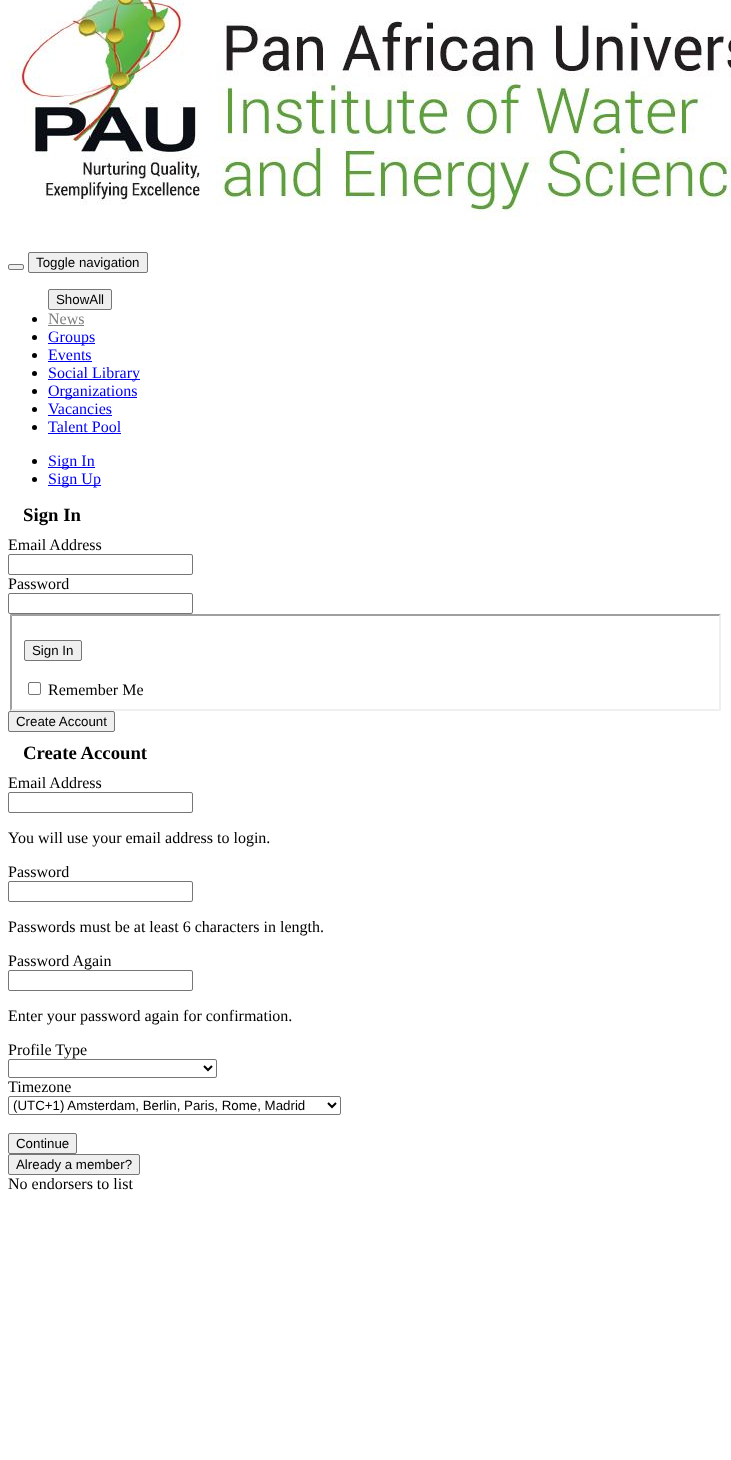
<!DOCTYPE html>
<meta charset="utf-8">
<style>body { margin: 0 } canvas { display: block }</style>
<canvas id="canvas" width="731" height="1460"></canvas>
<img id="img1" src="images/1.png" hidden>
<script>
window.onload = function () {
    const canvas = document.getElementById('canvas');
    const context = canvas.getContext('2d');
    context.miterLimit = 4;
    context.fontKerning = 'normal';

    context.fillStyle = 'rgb(255, 255, 255)';
    context.fillRect(0, 0, 731, 1460);
    context.drawImage(document.getElementById('img1'), 10, 0, 721, 219);
    context.fillStyle = 'rgb(239, 239, 239)';
    context.beginPath();
    context.roundRect(8.5, 264.5, 15, 5, 1.5);
    context.fill();
    context.strokeStyle = 'rgb(118, 118, 118)';
    context.stroke();
    context.beginPath();
    context.roundRect(28.5, 252.5, 119, 20, 1.5);
    context.fill();
    context.stroke();
    context.beginPath();
    context.roundRect(48.5, 289.5, 63, 20, 1.5);
    context.fill();
    context.stroke();
    context.fillStyle = 'rgb(0, 0, 0)';
    context.beginPath();
    context.arc(34.5, 319.5, 2.5, 0, 2 * Math.PI);
    context.fill();
    context.fillStyle = 'rgb(128, 128, 128)';
    context.fillRect(48, 325, 36, 1);
    context.fillStyle = 'rgb(0, 0, 0)';
    context.beginPath();
    context.arc(34.5, 337.5, 2.5, 0, 2 * Math.PI);
    context.fill();
    context.fillStyle = 'rgb(0, 0, 238)';
    context.fillRect(48, 343, 47, 1);
    context.fillStyle = 'rgb(0, 0, 0)';
    context.beginPath();
    context.arc(34.5, 355.5, 2.5, 0, 2 * Math.PI);
    context.fill();
    context.fillStyle = 'rgb(0, 0, 238)';
    context.fillRect(48, 361, 44, 1);
    context.fillStyle = 'rgb(0, 0, 0)';
    context.beginPath();
    context.arc(34.5, 373.5, 2.5, 0, 2 * Math.PI);
    context.fill();
    context.fillStyle = 'rgb(0, 0, 238)';
    context.fillRect(48, 379, 92, 1);
    context.fillStyle = 'rgb(0, 0, 0)';
    context.beginPath();
    context.arc(34.5, 391.5, 2.5, 0, 2 * Math.PI);
    context.fill();
    context.fillStyle = 'rgb(0, 0, 238)';
    context.fillRect(48, 397, 89, 1);
    context.fillStyle = 'rgb(0, 0, 0)';
    context.beginPath();
    context.arc(34.5, 409.5, 2.5, 0, 2 * Math.PI);
    context.fill();
    context.fillStyle = 'rgb(0, 0, 238)';
    context.fillRect(48, 415, 64, 1);
    context.fillStyle = 'rgb(0, 0, 0)';
    context.beginPath();
    context.arc(34.5, 427.5, 2.5, 0, 2 * Math.PI);
    context.fill();
    context.fillStyle = 'rgb(0, 0, 238)';
    context.fillRect(48, 433, 73, 1);
    context.fillStyle = 'rgb(0, 0, 0)';
    context.beginPath();
    context.arc(34.5, 461.5, 2.5, 0, 2 * Math.PI);
    context.fill();
    context.fillStyle = 'rgb(0, 0, 238)';
    context.fillRect(48, 467, 47, 1);
    context.fillStyle = 'rgb(0, 0, 0)';
    context.beginPath();
    context.arc(34.5, 479.5, 2.5, 0, 2 * Math.PI);
    context.fill();
    context.fillStyle = 'rgb(0, 0, 238)';
    context.fillRect(48, 485, 53, 1);
    context.beginPath();
    context.roundRect(8.5, 554.5, 184, 20, 1.5);
    context.stroke();
    context.beginPath();
    context.roundRect(8.5, 593.5, 184, 20, 1.5);
    context.stroke();
    context.fillStyle = 'rgb(159, 159, 159)';
    context.beginPath();
    context.moveTo(10, 614);
    context.lineTo(721, 614);
    context.lineTo(719, 616);
    context.lineTo(12, 616);
    context.closePath();
    context.fill();
    context.fillStyle = 'rgb(239, 239, 239)';
    context.beginPath();
    context.moveTo(721, 614);
    context.lineTo(721, 711);
    context.lineTo(719, 709);
    context.lineTo(719, 616);
    context.closePath();
    context.fill();
    context.beginPath();
    context.moveTo(721, 711);
    context.lineTo(10, 711);
    context.lineTo(12, 709);
    context.lineTo(719, 709);
    context.closePath();
    context.fill();
    context.fillStyle = 'rgb(159, 159, 159)';
    context.beginPath();
    context.moveTo(10, 711);
    context.lineTo(10, 614);
    context.lineTo(12, 616);
    context.lineTo(12, 709);
    context.closePath();
    context.fill();
    context.fillStyle = 'rgb(239, 239, 239)';
    context.beginPath();
    context.roundRect(24.5, 640.5, 57, 20, 1.5);
    context.fill();
    context.stroke();
    context.beginPath();
    context.roundRect(28.5, 682.5, 12, 12, 1.5);
    context.stroke();
    context.beginPath();
    context.roundRect(8.5, 711.5, 106, 20, 1.5);
    context.fill();
    context.stroke();
    context.beginPath();
    context.roundRect(8.5, 792.5, 184, 20, 1.5);
    context.stroke();
    context.beginPath();
    context.roundRect(8.5, 881.5, 184, 20, 1.5);
    context.stroke();
    context.beginPath();
    context.roundRect(8.5, 970.5, 184, 20, 1.5);
    context.stroke();
    context.beginPath();
    context.roundRect(8.5, 1059.5, 208, 18, 1.5);
    context.stroke();
    context.beginPath();
    context.moveTo(204, 1066);
    context.lineTo(208, 1070);
    context.lineTo(212, 1066);
    context.strokeStyle = 'rgb(0, 0, 0)';
    context.lineWidth = 2;
    context.stroke();
    context.beginPath();
    context.roundRect(8.5, 1096.5, 332, 18, 1.5);
    context.strokeStyle = 'rgb(118, 118, 118)';
    context.lineWidth = 1;
    context.stroke();
    context.beginPath();
    context.moveTo(328, 1103);
    context.lineTo(332, 1107);
    context.lineTo(336, 1103);
    context.strokeStyle = 'rgb(0, 0, 0)';
    context.lineWidth = 2;
    context.stroke();
    context.beginPath();
    context.roundRect(8.5, 1133.5, 68, 20, 1.5);
    context.fill();
    context.strokeStyle = 'rgb(118, 118, 118)';
    context.lineWidth = 1;
    context.stroke();
    context.beginPath();
    context.roundRect(8.5, 1154.5, 131, 20, 1.5);
    context.fill();
    context.stroke();
    context.font = '13.3px Liberation Sans';
    context.fillStyle = 'rgb(0, 0, 0)';
    context.fillText('Toggle navigation', 36, 267);
    context.fillText('ShowAll', 56, 304);
    context.font = '16px Liberation Serif';
    context.fillStyle = 'rgb(128, 128, 128)';
    context.fillText('News', 48, 324);
    context.fillStyle = 'rgb(0, 0, 238)';
    context.fillText('Groups', 48, 342);
    context.fillText('Events', 48, 360);
    context.fillText('Social Library', 48, 378);
    context.fillText('Organizations', 48, 396);
    context.fillText('Vacancies', 48, 414);
    context.fillText('Talent Pool', 48, 432);
    context.fillText('Sign In', 48, 466);
    context.fillText('Sign Up', 48, 484);
    context.font = 'bold 18.75px Liberation Serif';
    context.fillStyle = 'rgb(0, 0, 0)';
    context.fillText('Sign In', 23, 521);
    context.font = '16px Liberation Serif';
    context.fillText('Email Address', 8, 550);
    context.fillText('Password', 8, 589);
    context.font = '13.3px Liberation Sans';
    context.fillText('Sign In', 32, 655);
    context.font = '16px Liberation Serif';
    context.fillText('Remember Me', 48, 695);
    context.font = '13.3px Liberation Sans';
    context.fillText('Create Account', 16, 726);
    context.font = 'bold 18.75px Liberation Serif';
    context.fillText('Create Account', 23, 759);
    context.font = '16px Liberation Serif';
    context.fillText('Email Address', 8, 788);
    context.fillText('You will use your email address to login.', 8, 843);
    context.fillText('Password', 8, 877);
    context.fillText('Passwords must be at least 6 characters in length.', 8, 932);
    context.fillText('Password Again', 8, 966);
    context.fillText('Enter your password again for confirmation.', 8, 1021);
    context.fillText('Profile Type', 8, 1055);
    context.fillText('Timezone', 8, 1092);
    context.font = '13.3px Liberation Sans';
    context.fillText('(UTC+1) Amsterdam, Berlin, Paris, Rome, Madrid', 13, 1110);
    context.fillText('Continue', 16, 1148);
    context.fillText('Already a member?', 16, 1169);
    context.font = '16px Liberation Serif';
    context.fillText('No endorsers to list', 8, 1189);
};
</script>
